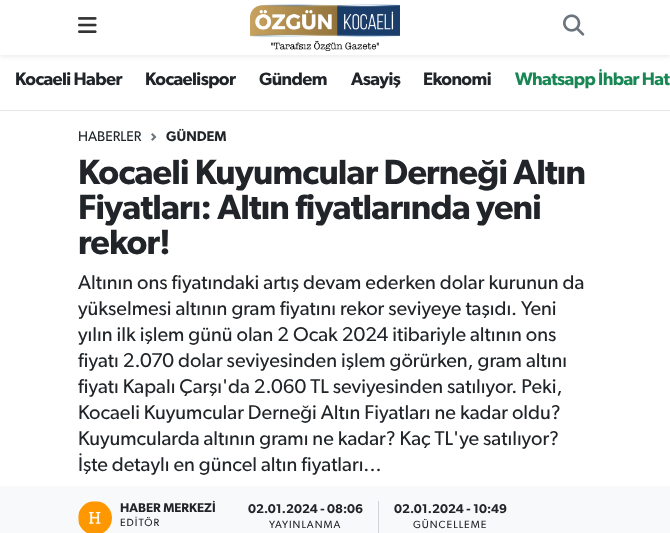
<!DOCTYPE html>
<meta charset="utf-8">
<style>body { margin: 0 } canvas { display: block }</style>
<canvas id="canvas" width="670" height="533"></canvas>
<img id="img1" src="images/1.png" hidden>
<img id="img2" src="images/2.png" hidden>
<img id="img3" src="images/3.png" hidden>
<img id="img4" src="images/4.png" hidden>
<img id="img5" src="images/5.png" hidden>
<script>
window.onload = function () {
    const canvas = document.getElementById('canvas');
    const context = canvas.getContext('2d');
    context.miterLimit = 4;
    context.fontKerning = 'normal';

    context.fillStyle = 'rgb(255, 255, 255)';
    context.fillRect(0, 0, 670, 533);
    context.fillStyle = 'rgba(0, 0, 0, 0.07)';
    context.filter = 'blur(2px)';
    context.beginPath();
    context.rect(0, 2, 670, 55);
    context.fill();
    context.filter = 'none';
    context.fillStyle = 'rgb(255, 255, 255)';
    context.fillRect(0, 0, 670, 55);
    context.drawImage(document.getElementById('img1'), 78, 17, 19, 16);
    context.drawImage(document.getElementById('img2'), 250, 4, 150, 47);
    context.drawImage(document.getElementById('img3'), 563, 14, 22, 22);
    context.fillStyle = 'rgb(230, 230, 230)';
    context.fillRect(0, 110, 670, 1);
    context.drawImage(document.getElementById('img4'), 151, 133, 6, 8);
    context.fillStyle = 'rgb(248, 249, 250)';
    context.fillRect(0, 486, 670, 47);
    context.drawImage(document.getElementById('img5'), 78, 501, 34, 32);
    context.fillStyle = 'rgb(206, 212, 218)';
    context.fillRect(378, 501, 1, 32);
    context.letterSpacing = '-0.6px';
    context.font = '600 18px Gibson';
    context.fillStyle = 'rgb(33, 37, 41)';
    context.fillText('Kocaeli Haber', 15, 85);
    context.fillText('Kocaelispor', 145, 85);
    context.fillText('Gündem', 259, 85);
    context.fillText('Asayiş', 351, 85);
    context.fillText('Ekonomi', 423, 85);
    context.fillStyle = 'rgb(25, 135, 84)';
    context.fillText('Whatsapp İhbar Hat', 515, 85);
    context.letterSpacing = '0px';
    context.font = '14px Gibson';
    context.fillStyle = 'rgb(33, 37, 41)';
    context.fillText('HABERLER', 78, 141);
    context.font = '600 14px Gibson';
    context.fillText('GÜNDEM', 166, 141);
    context.letterSpacing = '-0.8px';
    context.font = '600 35px Gibson';
    context.fillText('Kocaeli Kuyumcular Derneği Altın', 78, 184);
    context.fillText('Fiyatları: Altın fiyatlarında yeni', 78, 219);
    context.fillText('rekor!', 78, 254);
    context.letterSpacing = '0px';
    context.font = '20px Gibson';
    context.fillText('Altının ons fiyatındaki artış devam ederken dolar kurunun da', 78, 289);
    context.fillText('yükselmesi altının gram fiyatını rekor seviyeye taşıdı. Yeni', 78, 315);
    context.fillText('yılın ilk işlem günü olan 2 Ocak 2024 itibariyle altının ons', 78, 341);
    context.fillText('fiyatı 2.070 dolar seviyesinden işlem görürken, gram altını', 78, 367);
    context.fillText('fiyatı Kapalı Çarşı\'da 2.060 TL seviyesinden satılıyor. Peki,', 78, 393);
    context.fillText('Kocaeli Kuyumcular Derneği Altın Fiyatları ne kadar oldu?', 78, 419);
    context.fillText('Kuyumcularda altının gramı ne kadar? Kaç TL\'ye satılıyor?', 78, 445);
    context.fillText('İşte detaylı en güncel altın fiyatları...', 78, 471);
    context.font = '600 12.75px Gibson';
    context.fillText('HABER MERKEZİ', 120, 512);
    context.letterSpacing = '1px';
    context.font = '10.5px Gibson';
    context.fillText('EDİTÖR', 120, 526);
    context.letterSpacing = '0px';
    context.font = '600 12.75px Gibson';
    context.fillText('02.01.2024 - 08:06', 248, 513);
    context.letterSpacing = '1px';
    context.font = '10.5px Gibson';
    context.fillText('YAYINLANMA', 269, 528);
    context.letterSpacing = '0px';
    context.font = '600 12.75px Gibson';
    context.fillText('02.01.2024 - 10:49', 394, 513);
    context.letterSpacing = '1px';
    context.font = '10.5px Gibson';
    context.fillText('GÜNCELLEME', 413, 528);
};
</script>
